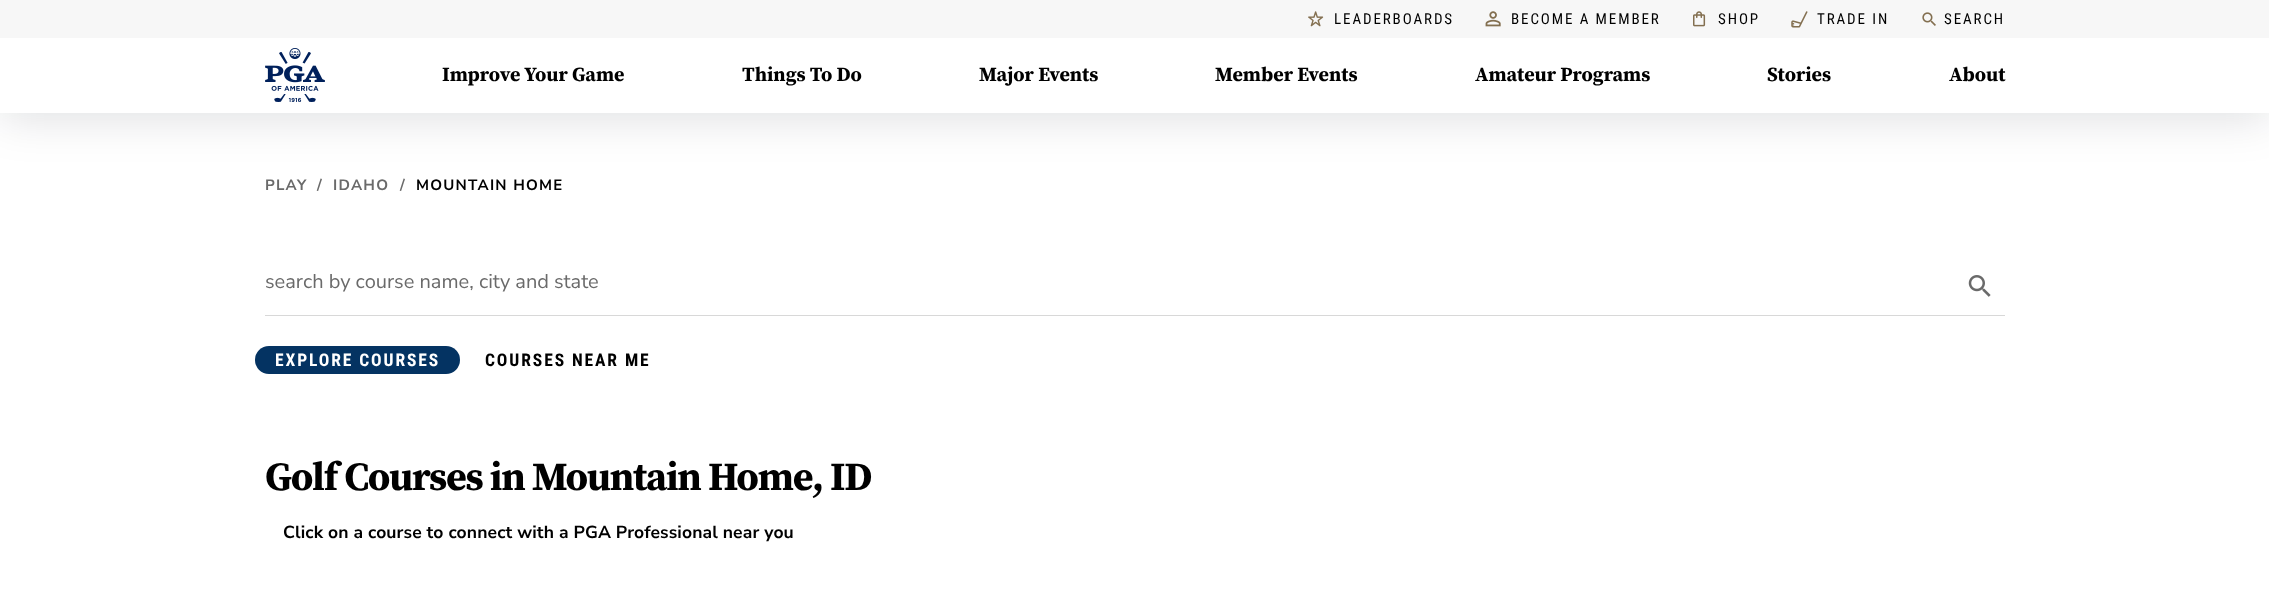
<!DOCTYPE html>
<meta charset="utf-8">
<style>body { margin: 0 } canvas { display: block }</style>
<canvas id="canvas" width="2269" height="589"></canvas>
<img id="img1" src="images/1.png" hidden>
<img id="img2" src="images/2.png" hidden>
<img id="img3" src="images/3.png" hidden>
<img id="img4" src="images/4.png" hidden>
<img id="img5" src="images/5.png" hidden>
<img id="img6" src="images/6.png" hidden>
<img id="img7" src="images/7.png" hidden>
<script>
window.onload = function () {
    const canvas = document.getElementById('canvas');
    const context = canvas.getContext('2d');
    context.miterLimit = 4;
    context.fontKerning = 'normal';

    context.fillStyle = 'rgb(255, 255, 255)';
    context.fillRect(0, 0, 2269, 589);
    context.save();
    context.beginPath();
    context.moveTo(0, 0);
    context.lineTo(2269, 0);
    context.lineTo(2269, 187);
    context.lineTo(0, 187);
    context.closePath();
    context.moveTo(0, 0);
    context.lineTo(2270, 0);
    context.lineTo(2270, 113);
    context.lineTo(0, 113);
    context.closePath();
    context.clip('evenodd');
    context.fillStyle = 'rgba(0, 10, 22, 0.13)';
    context.filter = 'blur(22.5px)';
    context.beginPath();
    context.rect(0, 5, 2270, 113);
    context.fill();
    context.filter = 'none';
    context.restore();
    context.fillStyle = 'rgb(247, 247, 247)';
    context.fillRect(0, 0, 2269, 38);
    context.drawImage(document.getElementById('img1'), 1308, 11, 16, 16);
    context.drawImage(document.getElementById('img2'), 1485, 11, 16, 16);
    context.drawImage(document.getElementById('img3'), 1693, 11, 13, 16);
    context.drawImage(document.getElementById('img4'), 1791, 11, 17, 17);
    context.drawImage(document.getElementById('img5'), 1922, 12, 14, 14);
    context.drawImage(document.getElementById('img6'), 265, 48, 60, 54);
    context.fillStyle = 'rgb(216, 216, 216)';
    context.fillRect(265, 315, 1740, 1);
    context.drawImage(document.getElementById('img7'), 1968, 275, 23, 22);
    context.fillStyle = 'rgb(4, 51, 98)';
    context.beginPath();
    context.roundRect(255, 346, 205, 28, 14);
    context.fill();
    context.letterSpacing = '1.9px';
    context.font = '15px Roboto Condensed';
    context.fillStyle = 'rgb(0, 0, 0)';
    context.fillText('LEADERBOARDS', 1334, 24);
    context.fillText('BECOME A MEMBER', 1511, 24);
    context.fillText('SHOP', 1718, 24);
    context.fillText('TRADE IN', 1817, 24);
    context.fillText('SEARCH', 1944, 24);
    context.letterSpacing = '0px';
    context.font = 'bold 20px Source Serif Pro';
    context.fillText('Improve Your Game', 442, 81);
    context.fillText('Things To Do', 742, 81);
    context.fillText('Major Events', 979, 81);
    context.fillText('Member Events', 1215, 81);
    context.fillText('Amateur Programs', 1475, 81);
    context.fillText('Stories', 1767, 81);
    context.fillText('About', 1949, 81);
    context.letterSpacing = '1.25px';
    context.font = 'bold 15px Nunito Sans';
    context.fillStyle = 'rgb(106, 106, 106)';
    context.fillText('PLAY', 265, 190);
    context.fillText('/', 317, 190);
    context.fillText('IDAHO', 333, 190);
    context.fillText('/', 400, 190);
    context.fillStyle = 'rgb(0, 0, 0)';
    context.fillText('MOUNTAIN HOME', 416, 190);
    context.letterSpacing = '0px';
    context.font = '20px Nunito Sans';
    context.fillStyle = 'rgb(106, 106, 106)';
    context.fillText('search by course name, city and state', 265, 288);
    context.letterSpacing = '1.9px';
    context.font = 'bold 17.5px Roboto Condensed';
    context.fillStyle = 'rgb(255, 255, 255)';
    context.fillText('EXPLORE COURSES', 275, 366);
    context.fillStyle = 'rgb(0, 0, 0)';
    context.fillText('COURSES NEAR ME', 485, 366);
    context.letterSpacing = '-1.25px';
    context.font = 'bold 40px Source Serif Pro';
    context.fillText('Golf Courses in Mountain Home, ID', 265, 490);
    context.letterSpacing = '0.12px';
    context.font = 'bold 17.5px Nunito Sans';
    context.fillText('Click on a course to connect with a PGA Professional near you', 283, 538);
};
</script>
